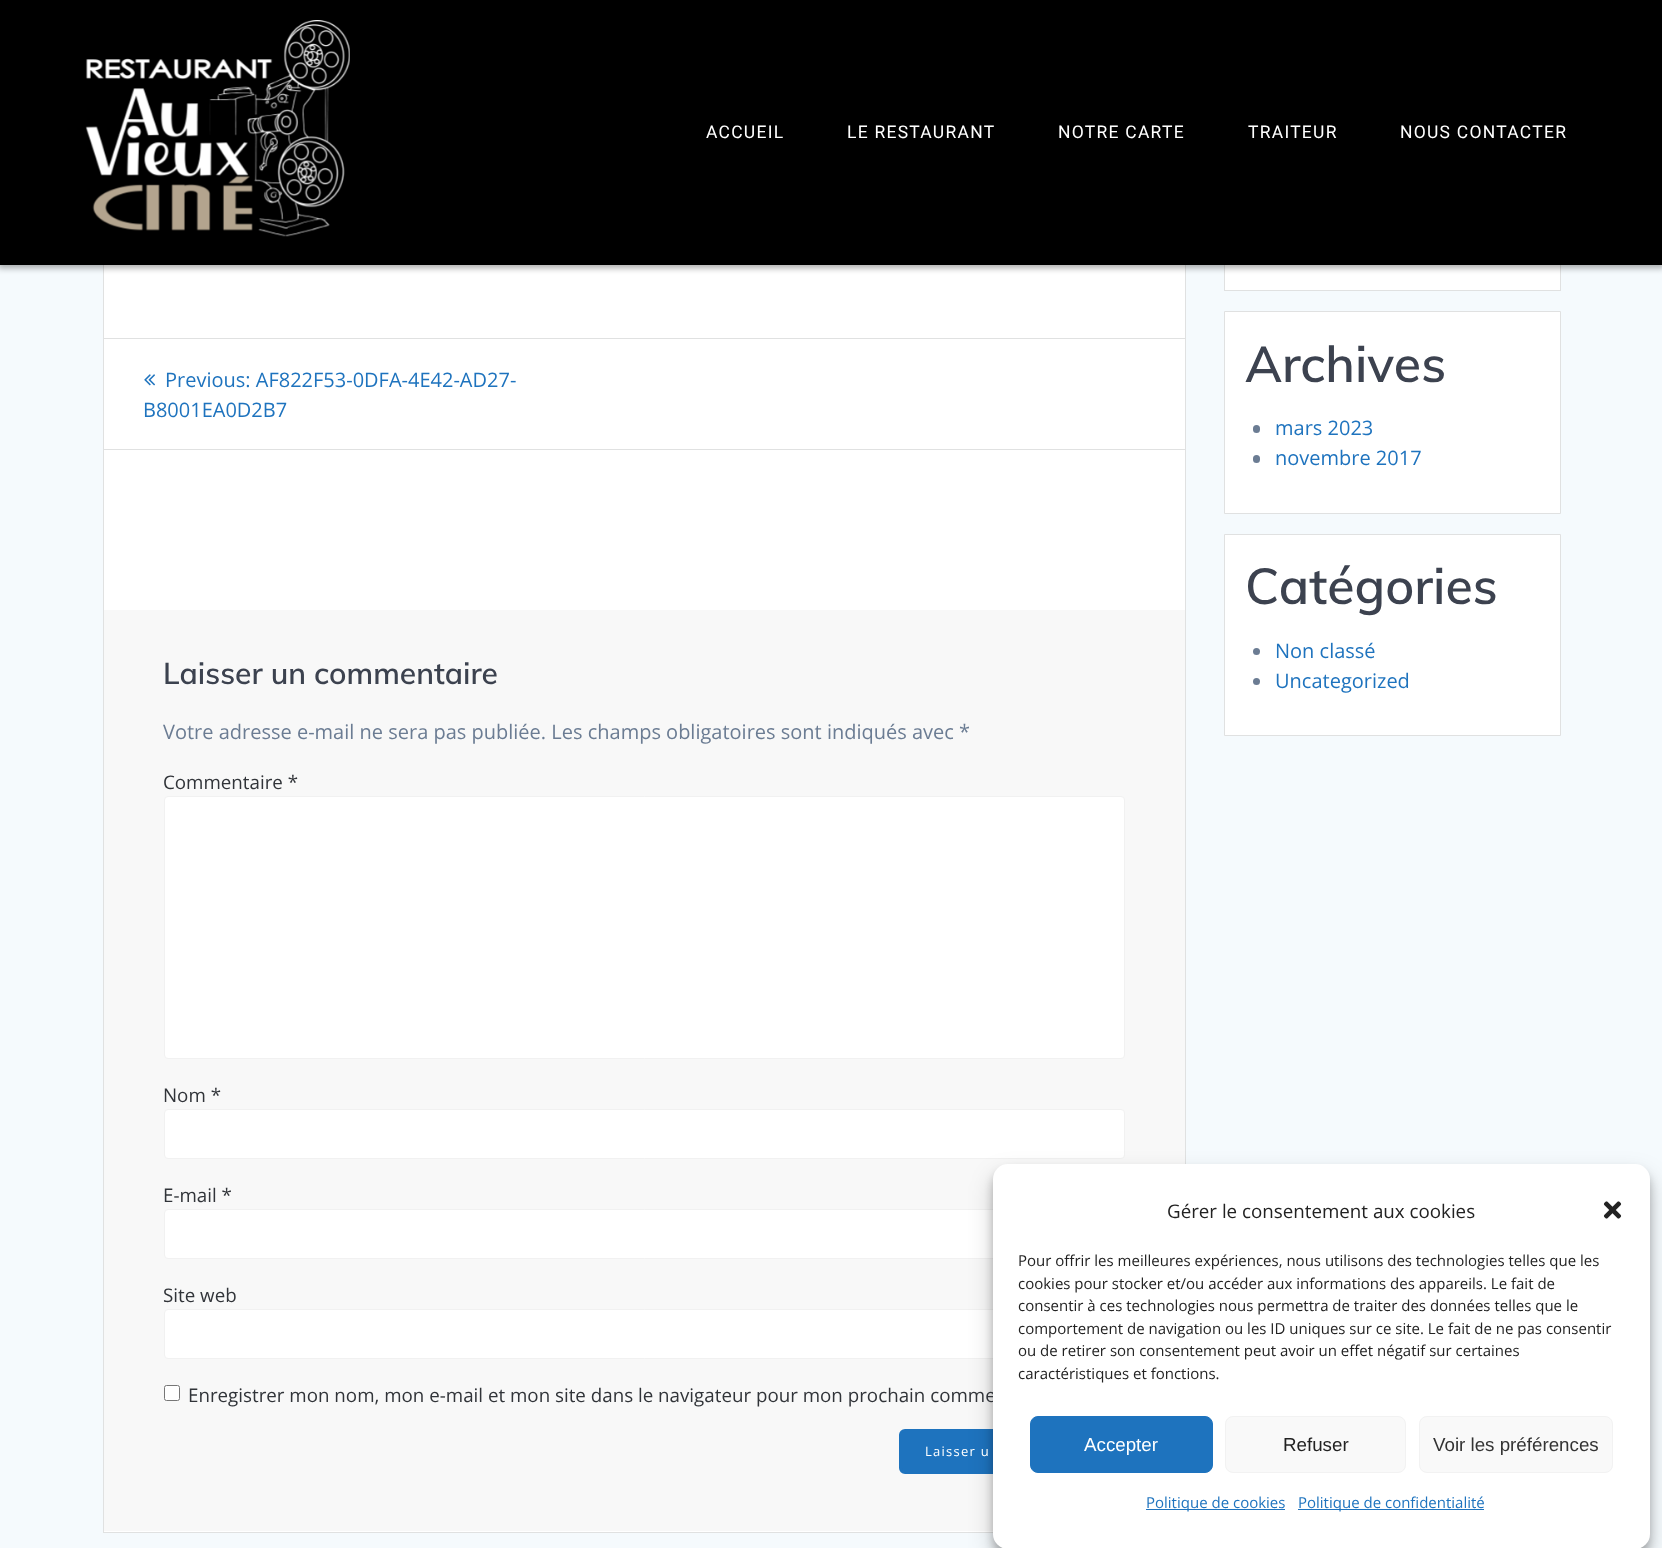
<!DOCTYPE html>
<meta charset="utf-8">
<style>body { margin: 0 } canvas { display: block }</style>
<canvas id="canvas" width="1662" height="1548"></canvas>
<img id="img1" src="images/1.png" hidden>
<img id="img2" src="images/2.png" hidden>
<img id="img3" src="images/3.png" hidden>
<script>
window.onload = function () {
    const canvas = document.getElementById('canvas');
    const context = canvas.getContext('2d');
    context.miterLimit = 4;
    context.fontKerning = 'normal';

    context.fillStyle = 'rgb(245, 250, 253)';
    context.fillRect(0, 0, 1662, 1548);
    context.fillStyle = 'rgb(255, 255, 255)';
    context.fillRect(104, 265, 1081, 1267);
    context.strokeStyle = 'rgb(224, 225, 225)';
    context.strokeRect(103.5, -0.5, 1082, 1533);
    context.fillRect(1225, 265, 335, 25);
    context.strokeRect(1224.5, -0.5, 336, 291);
    context.fillStyle = 'rgba(0, 0, 0, 0.33)';
    context.filter = 'blur(3px)';
    context.beginPath();
    context.rect(-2, -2, 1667, 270);
    context.fill();
    context.filter = 'none';
    context.fillStyle = 'rgb(0, 0, 0)';
    context.fillRect(0, 0, 1662, 265);
    context.drawImage(document.getElementById('img1'), 85, 20, 265, 217);
    context.fillStyle = 'rgb(224, 225, 225)';
    context.fillRect(104, 338, 1081, 1);
    context.fillRect(104, 449, 1081, 1);
    context.drawImage(document.getElementById('img2'), 144, 374, 11, 12);
    context.fillStyle = 'rgb(248, 248, 248)';
    context.fillRect(104, 610, 1081, 921);
    context.fillStyle = 'rgb(255, 255, 255)';
    context.beginPath();
    context.roundRect(164.5, 796.5, 960, 262, 3.5);
    context.fill();
    context.strokeStyle = 'rgb(241, 241, 241)';
    context.stroke();
    context.beginPath();
    context.roundRect(164.5, 1109.5, 960, 49, 3.5);
    context.fill();
    context.stroke();
    context.beginPath();
    context.roundRect(164.5, 1209.5, 960, 49, 3.5);
    context.fill();
    context.stroke();
    context.beginPath();
    context.roundRect(164.5, 1309.5, 960, 49, 3.5);
    context.fill();
    context.stroke();
    context.beginPath();
    context.roundRect(164.5, 1385.5, 15, 15, 2);
    context.fill();
    context.strokeStyle = 'rgb(118, 118, 118)';
    context.stroke();
    context.fillStyle = 'rgb(30, 115, 190)';
    context.beginPath();
    context.roundRect(900.5, 1430.5, 223, 42, 4.5);
    context.fill();
    context.strokeStyle = 'rgb(30, 115, 190)';
    context.lineWidth = 3;
    context.stroke();
    context.fillStyle = 'rgb(255, 255, 255)';
    context.beginPath();
    context.rect(1224.5, 311.5, 336, 202);
    context.fill();
    context.strokeStyle = 'rgb(224, 225, 225)';
    context.lineWidth = 1;
    context.stroke();
    context.fillStyle = 'rgb(107, 124, 147)';
    context.beginPath();
    context.roundRect(1253, 425, 7, 8, 3.5);
    context.fill();
    context.beginPath();
    context.roundRect(1253, 455, 7, 8, 3.5);
    context.fill();
    context.fillStyle = 'rgb(255, 255, 255)';
    context.beginPath();
    context.rect(1224.5, 534.5, 336, 201);
    context.fill();
    context.stroke();
    context.fillStyle = 'rgb(107, 124, 147)';
    context.beginPath();
    context.arc(1256.5, 651.5, 3.5, 0, 2 * Math.PI);
    context.fill();
    context.beginPath();
    context.arc(1256.5, 681.5, 3.5, 0, 2 * Math.PI);
    context.fill();
    context.fillStyle = 'rgba(0, 0, 0, 0.23)';
    context.filter = 'blur(4px)';
    context.beginPath();
    context.roundRect(993, 1171, 657, 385, 15);
    context.fill();
    context.filter = 'none';
    context.fillStyle = 'rgba(0, 0, 0, 0.19)';
    context.filter = 'blur(12.5px)';
    context.beginPath();
    context.roundRect(993, 1176, 657, 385, 15);
    context.fill();
    context.filter = 'none';
    context.letterSpacing = '1.25px';
    context.font = '17.5px Roboto';
    context.fillStyle = 'rgb(255, 255, 255)';
    context.fillText('ACCUEIL', 706, 138);
    context.fillText('LE RESTAURANT', 847, 138);
    context.fillText('NOTRE CARTE', 1058, 138);
    context.fillText('TRAITEUR', 1248, 138);
    context.fillText('NOUS CONTACTER', 1400, 138);
    context.letterSpacing = '0px';
    context.font = '20px Open Sans';
    context.fillStyle = 'rgb(30, 115, 190)';
    context.fillText('Previous: AF822F53-0DFA-4E42-AD27-', 165, 387);
    context.fillText('B8001EA0D2B7', 143, 417);
    context.font = '600 30px Muli';
    context.fillStyle = 'rgb(60, 66, 79)';
    context.fillText('Laisser un commentaire', 163, 684);
    context.font = '20px Open Sans';
    context.fillStyle = 'rgb(107, 124, 147)';
    context.fillText('Votre adresse e-mail ne sera pas publiée. Les champs obligatoires sont indiqués avec *', 163, 739);
    context.font = '18.75px Open Sans';
    context.fillStyle = 'rgb(49, 52, 57)';
    context.fillText('Commentaire *', 163, 789);
    context.fillText('Nom *', 163, 1102);
    context.fillText('E-mail *', 163, 1202);
    context.fillText('Site web', 163, 1302);
    context.fillText('Enregistrer mon nom, mon e-mail et mon site dans le navigateur pour mon prochain comme', 188, 1402);
    context.letterSpacing = '1.25px';
    context.font = '13px Open Sans';
    context.fillStyle = 'rgb(255, 255, 255)';
    context.fillText('Laisser u', 925, 1456);
    context.letterSpacing = '0px';
    context.font = '600 50px Muli';
    context.fillStyle = 'rgb(60, 66, 79)';
    context.fillText('Archives', 1245, 382);
    context.font = '20px Open Sans';
    context.fillStyle = 'rgb(30, 115, 190)';
    context.fillText('mars 2023', 1275, 435);
    context.fillText('novembre 2017', 1275, 465);
    context.font = '600 50px Muli';
    context.fillStyle = 'rgb(60, 66, 79)';
    context.fillText('Catégories', 1245, 604);
    context.font = '20px Open Sans';
    context.fillStyle = 'rgb(30, 115, 190)';
    context.fillText('Non classé', 1275, 658);
    context.fillText('Uncategorized', 1275, 688);
    context.fillStyle = 'rgb(255, 255, 255)';
    context.beginPath();
    context.roundRect(993, 1164, 657, 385, 15);
    context.fill();
    context.font = '18.75px Open Sans';
    context.fillStyle = 'rgb(34, 34, 34)';
    context.fillText('Gérer le consentement aux cookies', 1167, 1218);
    context.drawImage(document.getElementById('img3'), 1603, 1201, 19, 18);
    context.font = '15px Open Sans';
    context.fillText('Pour offrir les meilleures expériences, nous utilisons des technologies telles que les', 1018, 1266);
    context.fillText('cookies pour stocker et/ou accéder aux informations des appareils. Le fait de', 1018, 1289);
    context.fillText('consentir à ces technologies nous permettra de traiter des données telles que le', 1018, 1311);
    context.fillText('comportement de navigation ou les ID uniques sur ce site. Le fait de ne pas consentir', 1018, 1334);
    context.fillText('ou de retirer son consentement peut avoir un effet négatif sur certaines', 1018, 1356);
    context.fillText('caractéristiques et fonctions.', 1018, 1379);
    context.fillStyle = 'rgb(30, 115, 190)';
    context.beginPath();
    context.roundRect(1030.5, 1416.5, 182, 56, 7.5);
    context.fill();
    context.strokeStyle = 'rgb(30, 115, 190)';
    context.stroke();
    context.font = '18.75px Liberation Sans';
    context.fillStyle = 'rgb(255, 255, 255)';
    context.fillText('Accepter', 1084, 1451);
    context.fillStyle = 'rgb(249, 249, 249)';
    context.beginPath();
    context.roundRect(1225.5, 1416.5, 180, 56, 7.5);
    context.fill();
    context.strokeStyle = 'rgb(242, 242, 242)';
    context.stroke();
    context.fillStyle = 'rgb(34, 34, 34)';
    context.fillText('Refuser', 1283, 1451);
    context.fillStyle = 'rgb(249, 249, 249)';
    context.beginPath();
    context.roundRect(1419.5, 1416.5, 193, 56, 7.5);
    context.fill();
    context.stroke();
    context.fillStyle = 'rgb(51, 51, 51)';
    context.fillText('Voir les préférences', 1433, 1451);
    context.fillStyle = 'rgb(30, 115, 190)';
    context.fillRect(1146, 1509, 139, 1);
    context.font = '15px Open Sans';
    context.fillText('Politique de cookies', 1146, 1508);
    context.fillRect(1298, 1509, 186, 1);
    context.fillText('Politique de confidentialité', 1298, 1508);
};
</script>
